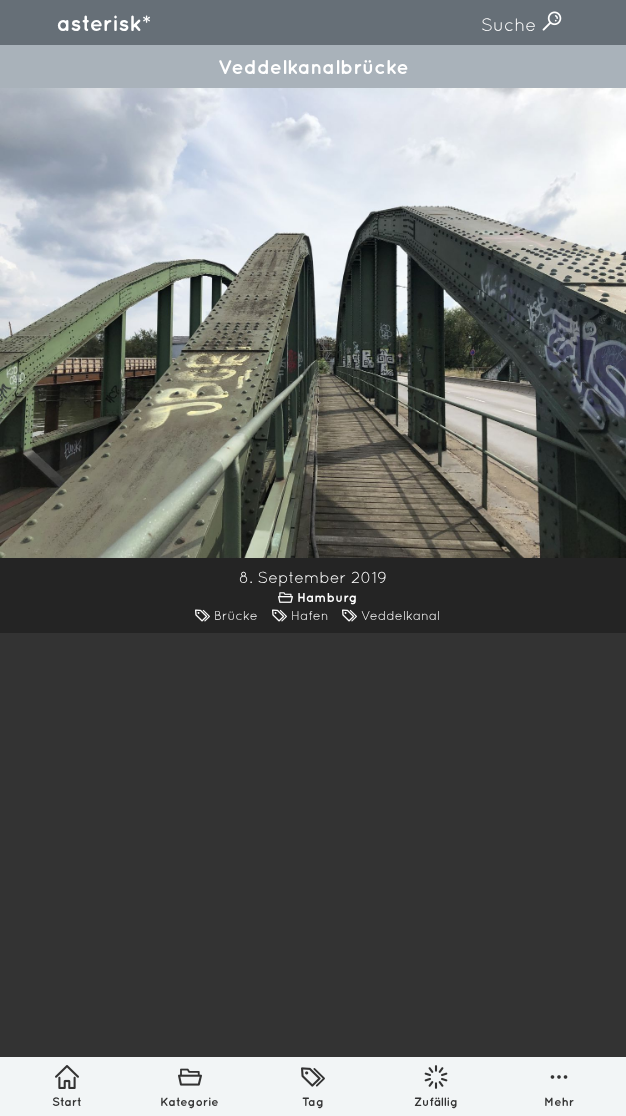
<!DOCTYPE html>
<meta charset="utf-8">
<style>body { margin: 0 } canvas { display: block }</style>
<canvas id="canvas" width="626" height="1116"></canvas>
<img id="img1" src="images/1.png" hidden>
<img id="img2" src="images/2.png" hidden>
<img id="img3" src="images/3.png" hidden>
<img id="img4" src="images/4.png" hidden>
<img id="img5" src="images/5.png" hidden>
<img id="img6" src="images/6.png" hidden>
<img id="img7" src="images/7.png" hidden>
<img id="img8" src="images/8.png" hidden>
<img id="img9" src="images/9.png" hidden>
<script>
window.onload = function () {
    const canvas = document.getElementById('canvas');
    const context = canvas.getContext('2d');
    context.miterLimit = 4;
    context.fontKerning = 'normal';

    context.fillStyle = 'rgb(51, 51, 51)';
    context.fillRect(0, 0, 626, 1116);
    context.fillStyle = 'rgb(102, 111, 119)';
    context.fillRect(0, 0, 626, 45);
    context.drawImage(document.getElementById('img1'), 542, 11, 20, 20);
    context.fillStyle = 'rgb(169, 178, 186)';
    context.fillRect(0, 45, 626, 43);
    context.drawImage(document.getElementById('img2'), 0, 88, 626, 470);
    context.fillStyle = 'rgb(36, 36, 36)';
    context.fillRect(0, 558, 626, 75);
    context.drawImage(document.getElementById('img3'), 278, 592, 15, 11);
    context.drawImage(document.getElementById('img4'), 195, 609, 15, 13);
    context.drawImage(document.getElementById('img4'), 272, 609, 15, 13);
    context.drawImage(document.getElementById('img4'), 342, 609, 15, 13);
    context.fillStyle = 'rgb(242, 245, 246)';
    context.fillRect(0, 1057, 626, 59);
    context.drawImage(document.getElementById('img5'), 55, 1065, 24, 24);
    context.drawImage(document.getElementById('img6'), 178, 1068, 24, 18);
    context.drawImage(document.getElementById('img7'), 301, 1067, 24, 20);
    context.drawImage(document.getElementById('img8'), 424, 1065, 24, 24);
    context.drawImage(document.getElementById('img9'), 550, 1075, 18, 4);
    context.font = 'bold 22px Quicksand';
    context.fillStyle = 'rgb(255, 255, 255)';
    context.fillText('asterisk*', 57, 31);
    context.font = '18px Quicksand';
    context.fillText('Suche', 481, 31);
    context.font = 'bold 20px Quicksand';
    context.fillText('Veddelkanalbrücke', 218, 74);
    context.font = '16px Quicksand';
    context.fillText('8. September 2019', 239, 583);
    context.font = 'bold 13px Quicksand';
    context.fillText('Hamburg', 297, 602);
    context.font = '13px Quicksand';
    context.fillText('Brücke', 214, 620);
    context.fillText('Hafen', 291, 620);
    context.fillText('Veddelkanal', 361, 620);
    context.font = 'bold 12px Quicksand';
    context.fillStyle = 'rgb(51, 51, 51)';
    context.fillText('Start', 52, 1106);
    context.fillText('Kategorie', 160, 1106);
    context.fillText('Tag', 302, 1106);
    context.fillText('Zufällig', 414, 1106);
    context.fillText('Mehr', 544, 1106);
};
</script>
